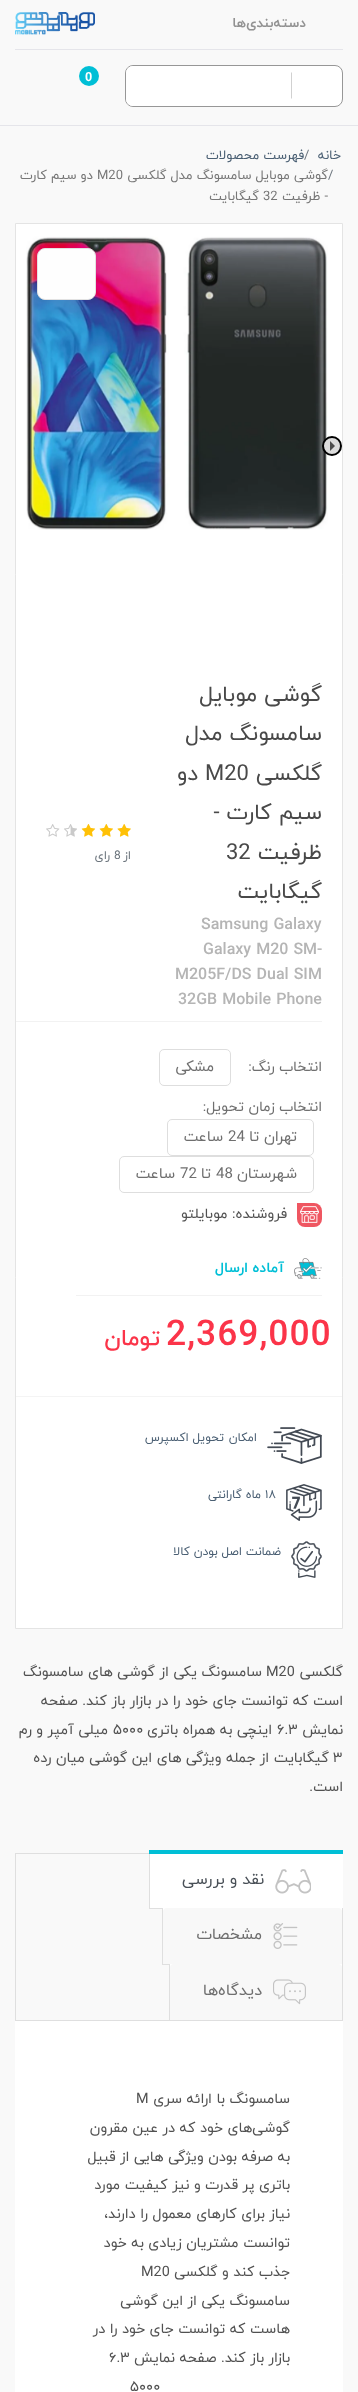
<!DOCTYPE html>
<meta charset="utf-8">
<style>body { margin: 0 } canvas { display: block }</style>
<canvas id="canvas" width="358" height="2392"></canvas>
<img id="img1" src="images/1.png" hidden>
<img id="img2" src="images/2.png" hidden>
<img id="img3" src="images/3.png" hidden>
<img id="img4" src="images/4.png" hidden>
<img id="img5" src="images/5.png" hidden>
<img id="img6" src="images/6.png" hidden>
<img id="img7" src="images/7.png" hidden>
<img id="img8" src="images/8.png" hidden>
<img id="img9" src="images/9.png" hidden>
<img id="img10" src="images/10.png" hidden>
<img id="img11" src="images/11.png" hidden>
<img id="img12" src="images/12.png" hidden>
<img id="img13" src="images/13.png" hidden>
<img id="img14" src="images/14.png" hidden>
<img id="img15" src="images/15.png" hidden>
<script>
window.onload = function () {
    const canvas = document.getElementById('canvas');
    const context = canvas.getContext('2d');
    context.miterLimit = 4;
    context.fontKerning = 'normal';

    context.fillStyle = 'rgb(249, 249, 249)';
    context.fillRect(0, 0, 358, 2392);
    context.fillStyle = 'rgb(229, 229, 234)';
    context.fillRect(0, 125, 358, 1);
    context.fillRect(15, 49, 328, 1);
    context.drawImage(document.getElementById('img1'), 15, 12, 80, 23);
    context.fillStyle = 'rgb(255, 255, 255)';
    context.beginPath();
    context.roundRect(125.5, 65.5, 217, 41, 7.5);
    context.fill();
    context.strokeStyle = 'rgb(151, 151, 151)';
    context.stroke();
    context.beginPath();
    context.roundRect(126, 66, 166, 40, [7, 0, 0, 7]);
    context.fill();
    context.fillStyle = 'rgb(209, 209, 209)';
    context.beginPath();
    context.moveTo(291, 72);
    context.lineTo(291, 99);
    context.lineTo(292, 98);
    context.lineTo(292, 73);
    context.closePath();
    context.fill();
    context.fillStyle = 'rgb(0, 191, 214)';
    context.beginPath();
    context.arc(89, 76, 10, 0, 2 * Math.PI);
    context.fill();
    context.fillStyle = 'rgb(255, 255, 255)';
    context.beginPath();
    context.rect(15.5, 223.5, 327, 1405);
    context.fill();
    context.strokeStyle = 'rgb(228, 228, 228)';
    context.stroke();
    context.drawImage(document.getElementById('img2'), 26, 236, 302, 294);
    context.fillStyle = 'rgb(254, 254, 254)';
    context.beginPath();
    context.roundRect(37.5, 248.5, 58, 51, 7.5);
    context.fill();
    context.strokeStyle = 'rgb(226, 226, 226)';
    context.stroke();
    context.fillStyle = 'rgb(220, 220, 220)';
    context.beginPath();
    context.arc(332, 446, 9, 0, 2 * Math.PI);
    context.fill();
    context.strokeStyle = 'rgb(0, 0, 0)';
    context.lineWidth = 2;
    context.stroke();
    context.fillStyle = 'rgb(76, 76, 76)';
    context.beginPath();
    context.moveTo(330, 451);
    context.lineTo(330, 441);
    context.lineTo(335, 446);
    context.closePath();
    context.fill();
    context.fillStyle = 'rgb(242, 242, 242)';
    context.fillRect(16, 1021, 306, 1);
    context.drawImage(document.getElementById('img3'), 117, 824, 14, 13);
    context.drawImage(document.getElementById('img4'), 99, 824, 14, 13);
    context.drawImage(document.getElementById('img5'), 81, 824, 15, 13);
    context.drawImage(document.getElementById('img6'), 64, 824, 13, 13);
    context.drawImage(document.getElementById('img7'), 46, 824, 14, 13);
    context.beginPath();
    context.roundRect(159.5, 1049.5, 71, 36, 4.5);
    context.strokeStyle = 'rgb(222, 222, 222)';
    context.lineWidth = 1;
    context.stroke();
    context.beginPath();
    context.roundRect(167.5, 1119.5, 146, 36, 4.5);
    context.stroke();
    context.beginPath();
    context.roundRect(119.5, 1156.5, 194, 36, 4.5);
    context.stroke();
    context.fillRect(76, 1295, 246, 1);
    context.fillStyle = 'rgb(239, 86, 97)';
    context.beginPath();
    context.roundRect(297, 1203, 25, 24, [0, 8, 8, 8]);
    context.fill();
    context.drawImage(document.getElementById('img8'), 300, 1206, 19, 17);
    context.drawImage(document.getElementById('img9'), 294, 1258, 28, 21);
    context.fillStyle = 'rgb(244, 244, 244)';
    context.fillRect(16, 1396, 326, 1);
    context.drawImage(document.getElementById('img10'), 267, 1427, 55, 37);
    context.drawImage(document.getElementById('img11'), 286, 1484, 36, 37);
    context.drawImage(document.getElementById('img12'), 291, 1541, 31, 37);
    context.fillStyle = 'rgb(255, 255, 255)';
    context.fillRect(15, 2021, 328, 371);
    context.strokeStyle = 'rgb(223, 223, 223)';
    context.strokeRect(15.5, 1853.5, 327, 167);
    context.fillRect(150, 1854, 193, 54);
    context.fillStyle = 'rgb(223, 223, 223)';
    context.fillRect(149, 1908, 194, 1);
    context.fillRect(149, 1854, 1, 55);
    context.fillStyle = 'rgb(0, 191, 214)';
    context.fillRect(149, 1850, 194, 4);
    context.drawImage(document.getElementById('img13'), 275, 1869, 36, 25);
    context.fillStyle = 'rgb(255, 255, 255)';
    context.fillRect(163, 1908, 179, 4);
    context.fillStyle = 'rgb(223, 223, 223)';
    context.fillRect(162, 1964, 7, 1);
    context.fillRect(162, 1908, 1, 57);
    context.fillStyle = 'rgb(248, 248, 248)';
    context.beginPath();
    context.roundRect(163, 1908, 179, 56, [4, 4, 0, 0]);
    context.fill();
    context.drawImage(document.getElementById('img14'), 273, 1923, 25, 26);
    context.fillStyle = 'rgb(255, 255, 255)';
    context.fillRect(170, 1964, 172, 4);
    context.fillStyle = 'rgb(223, 223, 223)';
    context.fillRect(169, 1964, 1, 57);
    context.fillStyle = 'rgb(248, 248, 248)';
    context.beginPath();
    context.roundRect(170, 1964, 172, 56, [4, 4, 0, 0]);
    context.fill();
    context.drawImage(document.getElementById('img15'), 273, 1979, 33, 26);
    context.direction = 'rtl';
    context.font = 'bold 14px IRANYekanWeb';
    context.fillStyle = 'rgb(146, 146, 146)';
    context.fillText('دسته‌بندی‌ها', 306, 27);
    context.direction = 'ltr';
    context.font = 'bold 13px Liberation Sans';
    context.fillStyle = 'rgb(255, 255, 255)';
    context.fillText('0', 85, 81);
    context.direction = 'rtl';
    context.font = '13px IRANYekanWeb';
    context.fillStyle = 'rgb(74, 95, 115)';
    context.fillText('خانه', 341, 159);
    context.direction = 'ltr';
    context.fillStyle = 'rgb(108, 117, 125)';
    context.fillText('/', 304, 159);
    context.direction = 'rtl';
    context.fillStyle = 'rgb(74, 95, 115)';
    context.fillText('فهرست محصولات', 304, 159);
    context.direction = 'ltr';
    context.fillStyle = 'rgb(108, 117, 125)';
    context.fillText('/', 328, 179);
    context.direction = 'rtl';
    context.fillStyle = 'rgb(119, 119, 119)';
    context.fillText('گوشی موبايل سامسونگ مدل گلکسی', 328, 179);
    context.direction = 'ltr';
    context.fillText('M20', 97, 179);
    context.direction = 'rtl';
    context.fillText('دو سیم کارت', 93, 179);
    context.fillText('- ظرفیت', 328, 200);
    context.direction = 'ltr';
    context.fillText('32', 263, 200);
    context.direction = 'rtl';
    context.fillText('گیگابایت', 259, 200);
    context.font = '22px IRANYekanWeb';
    context.fillStyle = 'rgb(73, 73, 73)';
    context.fillText('گوشی موبايل', 322, 701);
    context.fillText('سامسونگ مدل', 322, 740);
    context.fillText('گلکسی', 322, 780);
    context.direction = 'ltr';
    context.fillText('M20', 205, 780);
    context.direction = 'rtl';
    context.fillText('دو', 198, 780);
    context.fillText('سیم کارت -', 322, 819);
    context.fillText('ظرفیت', 322, 859);
    context.direction = 'ltr';
    context.fillText('32', 226, 859);
    context.direction = 'rtl';
    context.fillText('گیگابایت', 322, 898);
    context.direction = 'ltr';
    context.font = '500 16px IRANYekanWeb';
    context.fillStyle = 'rgb(181, 181, 181)';
    context.fillText('Samsung Galaxy', 201, 929);
    context.fillText('Galaxy M20 SM-', 203, 954);
    context.fillText('M205F/DS Dual SIM', 175, 979);
    context.fillText('32GB Mobile Phone', 178, 1004);
    context.direction = 'rtl';
    context.font = '12px IRANYekanWeb';
    context.fillStyle = 'rgb(108, 117, 125)';
    context.fillText('از', 131, 859);
    context.direction = 'ltr';
    context.fillText('8', 114, 859);
    context.direction = 'rtl';
    context.fillText('رای', 110, 859);
    context.font = '14.4px IRANYekanWeb';
    context.fillStyle = 'rgb(111, 111, 111)';
    context.fillText('انتخاب رنگ:', 322, 1071);
    context.font = '15px IRANYekanWeb';
    context.fillText('مشکی', 214, 1071);
    context.font = '14.4px IRANYekanWeb';
    context.fillText('انتخاب زمان تحویل:', 322, 1111);
    context.font = '15px IRANYekanWeb';
    context.fillText('تهران تا', 297, 1141);
    context.direction = 'ltr';
    context.fillText('24', 228, 1141);
    context.direction = 'rtl';
    context.fillText('ساعت', 223, 1141);
    context.fillText('شهرستان', 297, 1178);
    context.direction = 'ltr';
    context.fillText('48', 216, 1178);
    context.direction = 'rtl';
    context.fillText('تا', 211, 1178);
    context.direction = 'ltr';
    context.fillText('72', 180, 1178);
    context.direction = 'rtl';
    context.fillText('ساعت', 175, 1178);
    context.font = '14.4px IRANYekanWeb';
    context.fillStyle = 'rgb(81, 81, 81)';
    context.fillText('فروشنده: موبایلتو', 287, 1218);
    context.font = 'bold 14.4px IRANYekanWeb';
    context.fillStyle = 'rgb(0, 191, 214)';
    context.fillText('آماده ارسال', 284, 1272);
    context.letterSpacing = '1px';
    context.direction = 'ltr';
    context.font = '500 35.5px IRANYekanWeb';
    context.fillStyle = 'rgb(251, 52, 73)';
    context.fillText('2,369,000', 166, 1345);
    context.letterSpacing = '0.5px';
    context.direction = 'rtl';
    context.font = '500 23px IRANYekanWeb';
    context.fillText('تومان', 160, 1345);
    context.letterSpacing = '0px';
    context.font = '12px IRANYekanWeb';
    context.fillStyle = 'rgb(74, 95, 115)';
    context.fillText('امکان', 257, 1441);
    context.fillText('تحویل اکسپرس', 224, 1441);
    context.direction = 'ltr';
    context.fillText('۱۸', 265, 1498);
    context.direction = 'rtl';
    context.fillText('ماه گارانتی', 261, 1498);
    context.fillText('ضمانت', 281, 1555);
    context.fillText('اصل بودن کالا', 242, 1555);
    context.font = '14.4px IRANYekanWeb';
    context.fillStyle = 'rgb(81, 81, 81)';
    context.fillText('گلکسی', 343, 1676);
    context.direction = 'ltr';
    context.fillText('M20', 266, 1676);
    context.direction = 'rtl';
    context.fillText('سامسونگ یکی از گوشی های سامسونگ', 262, 1676);
    context.fillText('است که توانست جای خود را در بازار باز کند. صفحه', 343, 1705);
    context.fillText('نمایش', 343, 1734);
    context.direction = 'ltr';
    context.fillText('۶.۳', 277, 1734);
    context.direction = 'rtl';
    context.fillText('اینچی به همراه باتری', 272, 1734);
    context.direction = 'ltr';
    context.fillText('۵۰۰۰', 113, 1734);
    context.direction = 'rtl';
    context.fillText('میلی آمپر و رم', 108, 1734);
    context.direction = 'ltr';
    context.fillText('۳', 333, 1762);
    context.direction = 'rtl';
    context.fillText('گیگابایت از جمله ویژگی های این گوشی میان رده', 329, 1762);
    context.fillText('است.', 343, 1791);
    context.font = '16px IRANYekanWeb';
    context.fillStyle = 'rgb(73, 80, 87)';
    context.fillText('نقد و بررسی', 264, 1884);
    context.fillStyle = 'rgb(111, 111, 111)';
    context.fillText('مشخصات', 262, 1939);
    context.fillText('دیدگاه‌ها', 262, 1995);
    context.font = '14.4px IRANYekanWeb';
    context.fillStyle = 'rgb(81, 81, 81)';
    context.fillText('سامسونگ با ارائه سری', 290, 2103);
    context.direction = 'ltr';
    context.fillText('M', 136, 2103);
    context.direction = 'rtl';
    context.fillText('گوشی‌های خود که در عین مقرون', 290, 2132);
    context.fillText('به صرفه بودن ویژگی هایی از قبیل', 290, 2161);
    context.fillText('باتری پر قدرت و نیز کیفیت مورد', 290, 2189);
    context.fillText('نیاز برای کارهای معمول را دارند،', 290, 2218);
    context.fillText('توانست مشتریان زیادی به خود', 290, 2247);
    context.fillText('جذب کند و گلکسی', 290, 2276);
    context.direction = 'ltr';
    context.fillText('M20', 141, 2276);
    context.direction = 'rtl';
    context.fillText('سامسونگ یکی از این گوشی', 290, 2305);
    context.fillText('هاست که توانست جای خود را در', 290, 2333);
    context.fillText('بازار باز کند. صفحه نمایش', 290, 2362);
    context.direction = 'ltr';
    context.fillText('۶.۳', 109, 2362);
    context.fillText('۵۰۰۰', 130, 2391);
};
</script>
